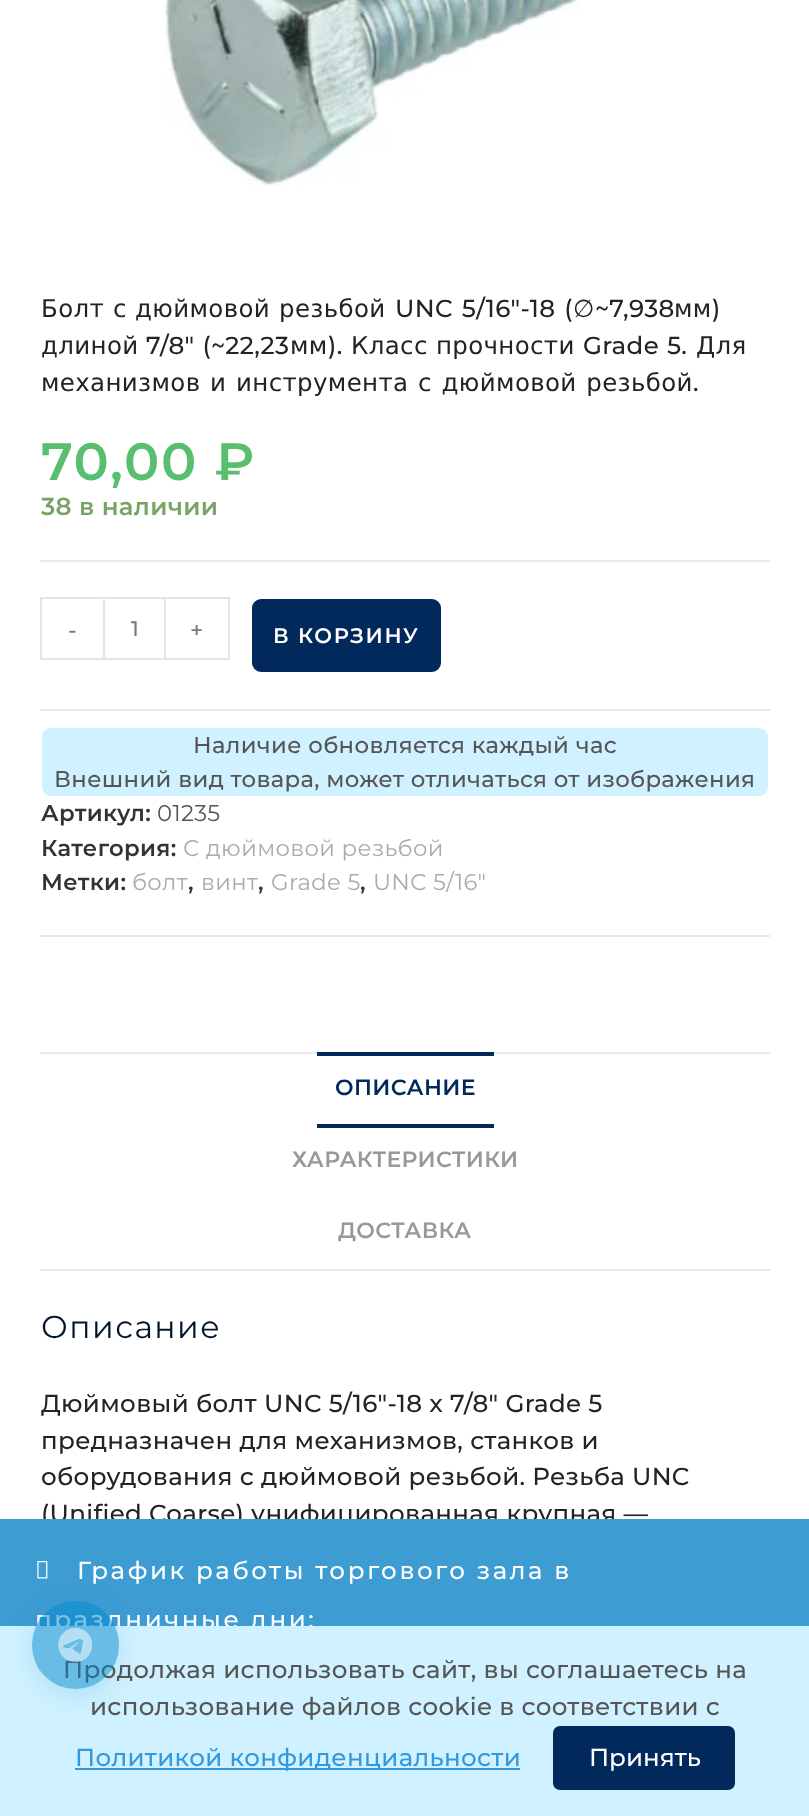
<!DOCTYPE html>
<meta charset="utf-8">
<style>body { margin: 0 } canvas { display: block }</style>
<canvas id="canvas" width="809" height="1816"></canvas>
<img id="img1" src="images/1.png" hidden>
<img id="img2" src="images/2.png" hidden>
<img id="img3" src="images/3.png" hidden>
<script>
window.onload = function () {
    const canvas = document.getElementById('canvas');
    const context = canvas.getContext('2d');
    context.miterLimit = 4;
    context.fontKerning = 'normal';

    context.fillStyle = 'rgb(255, 255, 255)';
    context.fillRect(0, 0, 809, 1816);
    context.drawImage(document.getElementById('img1'), 165, 0, 418, 186);
    context.fillStyle = 'rgb(234, 234, 234)';
    context.fillRect(40, 560, 730, 2);
    context.fillRect(40, 709, 730, 2);
    context.fillStyle = 'rgb(228, 228, 228)';
    context.fillRect(40, 597, 63, 2);
    context.fillRect(40, 658, 63, 2);
    context.fillRect(40, 597, 2, 63);
    context.strokeStyle = 'rgb(228, 228, 228)';
    context.lineWidth = 2;
    context.strokeRect(104, 598, 61, 61);
    context.fillRect(166, 597, 63, 2);
    context.fillRect(228, 597, 2, 63);
    context.fillRect(166, 658, 63, 2);
    context.fillStyle = 'rgb(1, 41, 91)';
    context.beginPath();
    context.roundRect(251, 598, 191, 75, 10);
    context.fill();
    context.strokeStyle = 'rgb(255, 255, 255)';
    context.stroke();
    context.fillStyle = 'rgb(234, 234, 234)';
    context.fillRect(40, 935, 730, 2);
    context.fillStyle = 'rgb(208, 241, 255)';
    context.beginPath();
    context.roundRect(42, 728, 726, 68, 9);
    context.fill();
    context.fillStyle = 'rgb(234, 234, 234)';
    context.fillRect(40, 1052, 730, 2);
    context.fillRect(40, 1269, 730, 2);
    context.fillStyle = 'rgb(1, 41, 91)';
    context.fillRect(317, 1052, 177, 4);
    context.fillRect(317, 1124, 177, 4);
    context.letterSpacing = '0.35px';
    context.font = '24.5px DejaVu Sans';
    context.fillStyle = 'rgb(35, 35, 35)';
    context.fillText('Болт', 41, 317);
    context.fillText('с', 113, 317);
    context.fillText('дюймовой', 135, 317);
    context.fillText('резьбой', 279, 317);
    context.wordSpacing = '2px';
    context.font = '500 24.5px Montserrat';
    context.fillText('UNC 5/16″-18 (', 395, 317);
    context.wordSpacing = '0px';
    context.font = '24.5px DejaVu Sans';
    context.fillText('∅', 573, 317);
    context.font = '500 24.5px Montserrat';
    context.fillText('~7,938', 595, 317);
    context.font = '24.5px DejaVu Sans';
    context.fillText('мм', 674, 317);
    context.font = '500 24.5px Montserrat';
    context.fillText(')', 712, 317);
    context.font = '24.5px DejaVu Sans';
    context.fillText('длиной', 41, 354);
    context.wordSpacing = '1px';
    context.font = '500 24.5px Montserrat';
    context.fillText('7/8″ (~22,23', 146, 354);
    context.wordSpacing = '0px';
    context.font = '24.5px DejaVu Sans';
    context.fillText('мм', 290, 354);
    context.font = '500 24.5px Montserrat';
    context.fillText(').', 328, 354);
    context.font = '24.5px DejaVu Sans';
    context.fillText('Класс прочности', 351, 354);
    context.wordSpacing = '1px';
    context.font = '500 24.5px Montserrat';
    context.fillText('Grade 5.', 583, 354);
    context.wordSpacing = '0px';
    context.font = '24.5px DejaVu Sans';
    context.fillText('Для', 696, 354);
    context.wordSpacing = '1.5px';
    context.fillText('механизмов и инструмента с дюймовой резьбой', 41, 391);
    context.wordSpacing = '0px';
    context.font = '500 24.5px Montserrat';
    context.fillText('.', 693, 391);
    context.letterSpacing = '1.75px';
    context.font = '600 52.5px Montserrat';
    context.fillStyle = 'rgb(87, 191, 109)';
    context.fillText('70,00 ₽', 41, 480);
    context.letterSpacing = '0.35px';
    context.font = '600 24.5px Montserrat';
    context.fillStyle = 'rgb(119, 164, 100)';
    context.fillText('38 в наличии', 41, 515);
    context.font = '500 22.75px Montserrat';
    context.fillStyle = 'rgb(119, 119, 119)';
    context.fillText('-', 68, 638);
    context.letterSpacing = '0px';
    context.font = '500 21px Montserrat';
    context.fillText('1', 131, 636);
    context.letterSpacing = '0.35px';
    context.font = '500 22.75px Montserrat';
    context.fillText('+', 190, 638);
    context.letterSpacing = '1.75px';
    context.font = '600 21px Montserrat';
    context.fillStyle = 'rgb(255, 255, 255)';
    context.fillText('В КОРЗИНУ', 273, 643);
    context.letterSpacing = '0.35px';
    context.font = '500 22.75px Montserrat';
    context.fillStyle = 'rgb(85, 85, 85)';
    context.fillText('Наличие обновляется каждый час', 193, 753);
    context.fillText('Внешний вид товара, может отличаться от изображения', 54, 787);
    context.font = '600 22.75px Montserrat';
    context.fillStyle = 'rgb(51, 51, 51)';
    context.fillText('Артикул:', 41, 821);
    context.font = '22.75px Montserrat';
    context.fillStyle = 'rgb(85, 85, 85)';
    context.fillText('01235', 157, 821);
    context.font = '600 22.75px Montserrat';
    context.fillStyle = 'rgb(51, 51, 51)';
    context.fillText('Категория:', 41, 856);
    context.font = '22.75px Montserrat';
    context.fillStyle = 'rgb(171, 171, 171)';
    context.fillText('С дюймовой резьбой', 183, 856);
    context.font = '600 22.75px Montserrat';
    context.fillStyle = 'rgb(51, 51, 51)';
    context.fillText('Метки:', 41, 890);
    context.font = '22.75px Montserrat';
    context.fillStyle = 'rgb(171, 171, 171)';
    context.fillText('болт', 132, 890);
    context.font = '600 22.75px Montserrat';
    context.fillStyle = 'rgb(51, 51, 51)';
    context.fillText(',', 188, 890);
    context.font = '22.75px Montserrat';
    context.fillStyle = 'rgb(171, 171, 171)';
    context.fillText('винт', 201, 890);
    context.font = '600 22.75px Montserrat';
    context.fillStyle = 'rgb(51, 51, 51)';
    context.fillText(',', 258, 890);
    context.font = '22.75px Montserrat';
    context.fillStyle = 'rgb(171, 171, 171)';
    context.fillText('Grade 5', 271, 890);
    context.font = '600 22.75px Montserrat';
    context.fillStyle = 'rgb(51, 51, 51)';
    context.fillText(',', 360, 890);
    context.font = '22.75px Montserrat';
    context.fillStyle = 'rgb(171, 171, 171)';
    context.fillText('UNC 5/16"', 373, 890);
    context.font = '600 22px Montserrat';
    context.fillStyle = 'rgb(1, 41, 91)';
    context.fillText('ОПИСАНИЕ', 335, 1095);
    context.fillStyle = 'rgb(153, 153, 153)';
    context.fillText('ХАРАКТЕРИСТИКИ', 292, 1167);
    context.fillText('ДОСТАВКА', 338, 1238);
    context.letterSpacing = '1.5px';
    context.font = '31.5px Montserrat';
    context.fillStyle = 'rgb(0, 21, 44)';
    context.fillText('Описание', 41, 1338);
    context.letterSpacing = '0.35px';
    context.font = '500 24.5px Montserrat';
    context.fillStyle = 'rgb(35, 35, 35)';
    context.fillText('Дюймовый болт UNC 5/16″-18 x 7/8″ Grade 5', 41, 1412);
    context.fillText('предназначен для механизмов, станков и', 41, 1449);
    context.fillText('оборудования с дюймовой резьбой. Резьба UNC', 41, 1485);
    context.fillText('(Unified Coarse) унифицированная крупная —', 41, 1522);
    context.fillStyle = 'rgb(61, 156, 210)';
    context.fillRect(0, 1519, 809, 107);
    context.drawImage(document.getElementById('img2'), 37, 1561, 11, 18);
    context.letterSpacing = '2.6px';
    context.fillStyle = 'rgb(255, 255, 255)';
    context.fillText('График работы торгового зала в', 77, 1579);
    context.fillText('праздничные дни:', 35, 1628);
    context.fillStyle = 'rgb(208, 241, 255)';
    context.fillRect(0, 1626, 809, 190);
    context.save();
    context.beginPath();
    context.moveTo(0, 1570);
    context.lineTo(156, 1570);
    context.lineTo(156, 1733);
    context.lineTo(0, 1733);
    context.closePath();
    context.moveTo(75.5, 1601);
    context.bezierCurveTo(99.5, 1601, 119, 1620.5, 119, 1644.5);
    context.lineTo(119, 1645.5);
    context.bezierCurveTo(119, 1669.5, 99.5, 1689, 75.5, 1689);
    context.bezierCurveTo(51.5, 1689, 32, 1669.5, 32, 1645.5);
    context.lineTo(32, 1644.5);
    context.bezierCurveTo(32, 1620.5, 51.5, 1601, 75.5, 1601);
    context.closePath();
    context.clip('evenodd');
    context.fillStyle = 'rgba(0, 136, 204, 0.15)';
    context.filter = 'blur(12px)';
    context.beginPath();
    context.roundRect(32, 1607, 87, 89, 43.5);
    context.fill();
    context.filter = 'none';
    context.restore();
    context.letterSpacing = '0.35px';
    context.fillStyle = 'rgb(85, 85, 85)';
    context.fillText('Продолжая использовать сайт, вы соглашаетесь на', 63, 1678);
    context.fillStyle = 'rgba(0, 136, 204, 0.5)';
    context.beginPath();
    context.roundRect(32, 1601, 87, 88, 43.5);
    context.fill();
    context.drawImage(document.getElementById('img3'), 58, 1627, 35, 36);
    context.fillStyle = 'rgb(85, 85, 85)';
    context.fillText('использование файлов cookie в соответствии с', 90, 1715);
    context.fillStyle = 'rgb(52, 152, 219)';
    context.fillRect(75, 1768, 445, 2);
    context.fillText('Политикой конфиденциальности', 75, 1766);
    context.fillStyle = 'rgb(1, 41, 91)';
    context.beginPath();
    context.roundRect(553, 1726, 182, 64, 7);
    context.fill();
    context.letterSpacing = '0px';
    context.fillStyle = 'rgb(255, 255, 255)';
    context.fillText('Принять', 589, 1766);
};
</script>
